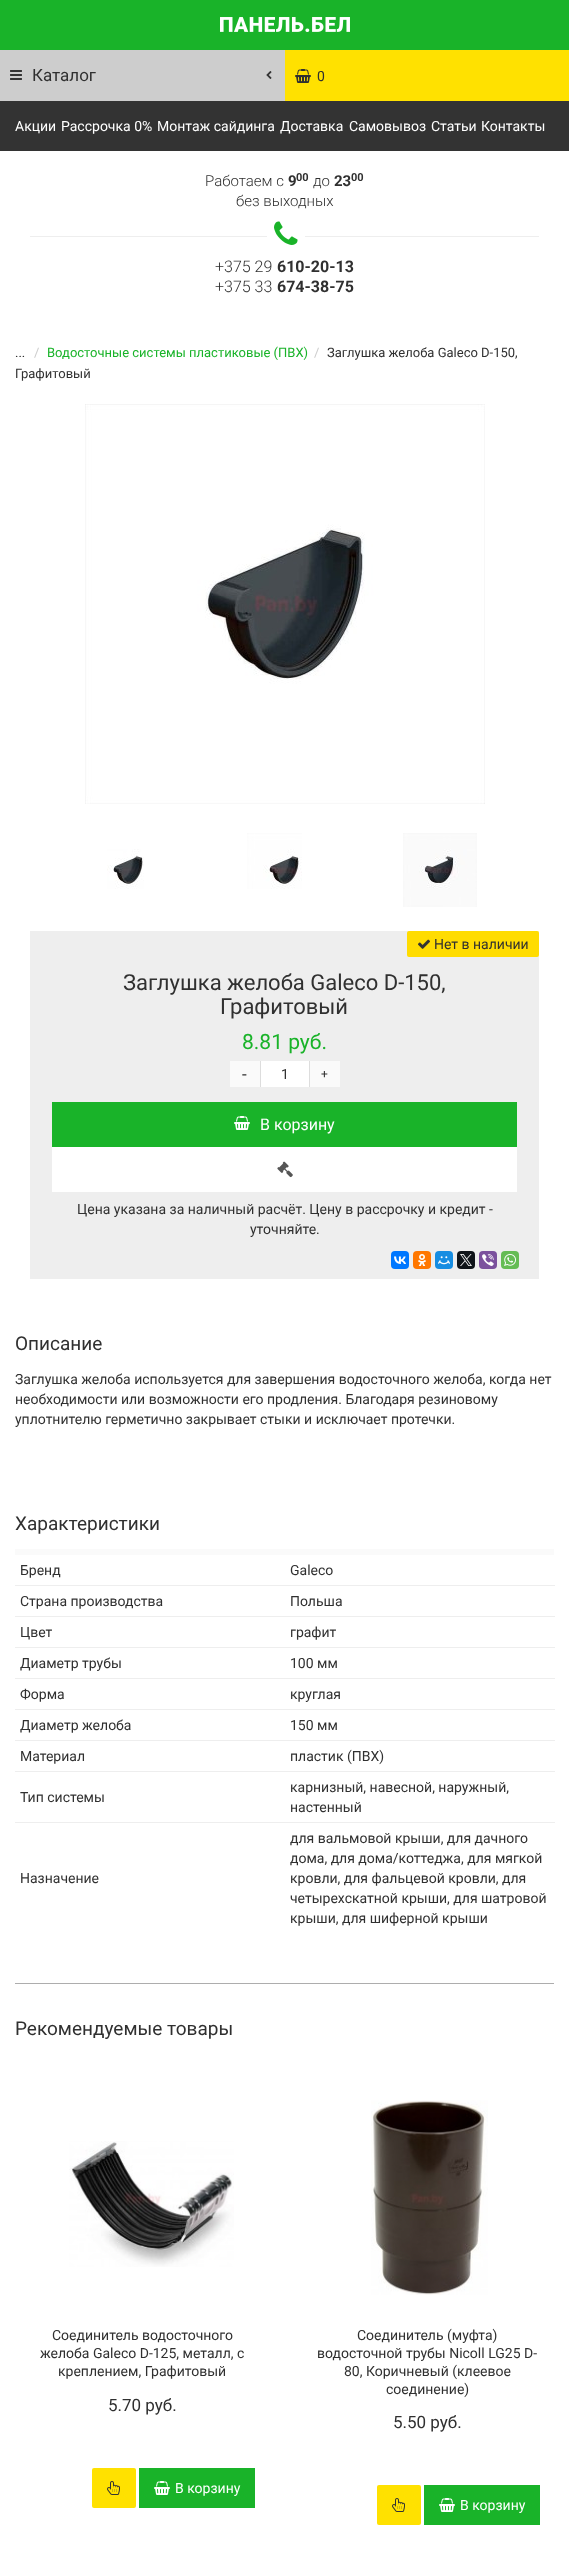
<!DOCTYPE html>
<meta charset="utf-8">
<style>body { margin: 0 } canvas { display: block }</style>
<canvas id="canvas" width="569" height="2552"></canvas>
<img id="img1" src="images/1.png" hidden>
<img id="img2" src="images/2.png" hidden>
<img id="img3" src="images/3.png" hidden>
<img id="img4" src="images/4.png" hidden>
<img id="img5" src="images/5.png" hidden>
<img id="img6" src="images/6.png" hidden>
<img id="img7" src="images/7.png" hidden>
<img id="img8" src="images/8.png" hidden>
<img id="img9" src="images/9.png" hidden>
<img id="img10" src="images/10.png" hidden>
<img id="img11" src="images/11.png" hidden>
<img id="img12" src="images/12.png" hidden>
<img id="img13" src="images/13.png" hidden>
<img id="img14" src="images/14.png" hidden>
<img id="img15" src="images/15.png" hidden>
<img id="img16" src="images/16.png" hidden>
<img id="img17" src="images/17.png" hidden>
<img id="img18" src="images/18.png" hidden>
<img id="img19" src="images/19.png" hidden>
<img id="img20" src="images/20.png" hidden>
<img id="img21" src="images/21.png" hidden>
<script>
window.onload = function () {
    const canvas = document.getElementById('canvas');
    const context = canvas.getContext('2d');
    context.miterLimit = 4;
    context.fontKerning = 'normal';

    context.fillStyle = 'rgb(255, 255, 255)';
    context.fillRect(0, 0, 569, 2552);
    context.fillStyle = 'rgb(205, 205, 205)';
    context.fillRect(0, 50, 285, 51);
    context.fillStyle = 'rgb(25, 179, 41)';
    context.fillRect(0, 0, 569, 50);
    context.drawImage(document.getElementById('img1'), 220, 17, 130, 15);
    context.drawImage(document.getElementById('img2'), 10, 70, 12, 10);
    context.drawImage(document.getElementById('img3'), 266, 71, 6, 8);
    context.fillStyle = 'rgb(255, 225, 0)';
    context.fillRect(285, 50, 284, 51);
    context.drawImage(document.getElementById('img4'), 295, 69, 16, 14);
    context.fillStyle = 'rgb(51, 51, 51)';
    context.fillRect(0, 101, 569, 50);
    context.fillStyle = 'rgb(238, 238, 238)';
    context.fillRect(30, 236, 509, 1);
    context.fillStyle = 'rgb(255, 255, 255)';
    context.fillRect(267, 236, 38, 1);
    context.drawImage(document.getElementById('img5'), 274, 221, 24, 24);
    context.drawImage(document.getElementById('img6'), 85, 404, 400, 400);
    context.drawImage(document.getElementById('img7'), 107, 849, 37, 40);
    context.drawImage(document.getElementById('img8'), 247, 833, 55, 56);
    context.drawImage(document.getElementById('img9'), 403, 833, 74, 74);
    context.fillStyle = 'rgb(238, 238, 238)';
    context.fillRect(30, 931, 509, 348);
    context.fillStyle = 'rgb(255, 220, 1)';
    context.beginPath();
    context.roundRect(407, 931, 132, 26, 2);
    context.fill();
    context.drawImage(document.getElementById('img10'), 418, 939, 12, 10);
    context.fillStyle = 'rgb(255, 255, 255)';
    context.fillRect(261, 1061, 48, 26);
    context.fillStyle = 'rgb(221, 221, 221)';
    context.fillRect(309, 1061, 1, 26);
    context.fillRect(260, 1061, 1, 26);
    context.fillStyle = 'rgb(250, 250, 250)';
    context.fillRect(230, 1061, 30, 26);
    context.fillRect(310, 1061, 30, 26);
    context.fillStyle = 'rgb(25, 179, 41)';
    context.fillRect(52, 1102, 465, 45);
    context.drawImage(document.getElementById('img11'), 234, 1116, 16, 14);
    context.fillStyle = 'rgb(255, 255, 255)';
    context.fillRect(52, 1147, 465, 45);
    context.drawImage(document.getElementById('img12'), 277, 1161, 16, 17);
    context.fillStyle = 'rgb(0, 119, 255)';
    context.beginPath();
    context.roundRect(391, 1251, 18, 18, 4);
    context.fill();
    context.drawImage(document.getElementById('img13'), 394, 1256, 12, 8);
    context.fillStyle = 'rgb(255, 119, 0)';
    context.beginPath();
    context.roundRect(413, 1251, 18, 18, 4);
    context.fill();
    context.drawImage(document.getElementById('img14'), 418, 1254, 8, 12);
    context.fillStyle = 'rgb(22, 141, 226)';
    context.beginPath();
    context.roundRect(435, 1251, 18, 18, 4);
    context.fill();
    context.drawImage(document.getElementById('img15'), 438, 1256, 12, 9);
    context.fillStyle = 'rgb(15, 20, 25)';
    context.beginPath();
    context.roundRect(457, 1251, 18, 18, 4);
    context.fill();
    context.drawImage(document.getElementById('img16'), 460, 1254, 12, 12);
    context.fillStyle = 'rgb(123, 81, 157)';
    context.beginPath();
    context.roundRect(479, 1251, 18, 18, 4);
    context.fill();
    context.drawImage(document.getElementById('img17'), 482, 1254, 12, 12);
    context.fillStyle = 'rgb(101, 188, 84)';
    context.beginPath();
    context.roundRect(501, 1251, 18, 18, 4);
    context.fill();
    context.drawImage(document.getElementById('img18'), 504, 1254, 12, 12);
    context.fillStyle = 'rgb(250, 250, 250)';
    context.fillRect(15, 1549, 539, 6);
    context.fillStyle = 'rgb(238, 238, 238)';
    context.fillRect(15, 1585, 540, 1);
    context.fillRect(15, 1616, 540, 1);
    context.fillRect(15, 1647, 540, 1);
    context.fillRect(15, 1678, 540, 1);
    context.fillRect(15, 1709, 540, 1);
    context.fillRect(15, 1740, 540, 1);
    context.fillRect(15, 1771, 540, 1);
    context.fillRect(15, 1822, 540, 1);
    context.fillStyle = 'rgb(173, 173, 173)';
    context.fillRect(15, 1983, 539, 1);
    context.drawImage(document.getElementById('img19'), 69, 2141, 165, 126);
    context.fillStyle = 'rgb(255, 225, 0)';
    context.beginPath();
    context.roundRect(92, 2468, 44, 40, 2);
    context.fill();
    context.drawImage(document.getElementById('img20'), 107, 2481, 13, 14);
    context.fillStyle = 'rgb(25, 179, 41)';
    context.fillRect(139, 2468, 116, 40);
    context.drawImage(document.getElementById('img11'), 154, 2481, 16, 14);
    context.drawImage(document.getElementById('img21'), 371, 2100, 117, 195);
    context.fillStyle = 'rgb(255, 225, 0)';
    context.beginPath();
    context.roundRect(377, 2485, 44, 40, 2);
    context.fill();
    context.drawImage(document.getElementById('img20'), 392, 2498, 13, 14);
    context.fillStyle = 'rgb(25, 179, 41)';
    context.fillRect(424, 2485, 116, 40);
    context.drawImage(document.getElementById('img11'), 439, 2498, 16, 14);
    context.font = '17px Roboto';
    context.fillStyle = 'rgb(48, 48, 48)';
    context.fillText('Каталог', 32, 81);
    context.font = '14px Roboto';
    context.fillText('0', 317, 81);
    context.fillStyle = 'rgb(255, 255, 255)';
    context.fillText('Акции', 15, 131);
    context.fillText('Рассрочка 0%', 61, 131);
    context.fillText('Монтаж сайдинга', 157, 131);
    context.fillText('Доставка', 280, 131);
    context.fillText('Самовывоз', 349, 131);
    context.fillText('Статьи', 431, 131);
    context.fillText('Контакты', 481, 131);
    context.font = '300 15px Roboto';
    context.fillStyle = 'rgb(48, 48, 48)';
    context.fillText('Работаем с', 205, 186);
    context.font = 'bold 15px Roboto';
    context.fillText('9', 288, 186);
    context.font = 'bold 11px Roboto';
    context.fillText('00', 296, 181);
    context.font = '300 15px Roboto';
    context.fillText('до', 313, 186);
    context.font = 'bold 15px Roboto';
    context.fillText('23', 334, 186);
    context.font = 'bold 11px Roboto';
    context.fillText('00', 351, 181);
    context.font = '300 15px Roboto';
    context.fillText('без выходных', 236, 206);
    context.font = '300 16px Roboto';
    context.fillText('+375 29', 215, 272);
    context.font = 'bold 16px Roboto';
    context.fillText('610-20-13', 277, 272);
    context.font = '300 16px Roboto';
    context.fillText('+375 33', 215, 292);
    context.font = 'bold 16px Roboto';
    context.fillText('674-38-75', 277, 292);
    context.font = '13px Roboto';
    context.fillText('...', 15, 357);
    context.fillStyle = 'rgb(204, 204, 204)';
    context.fillText('/', 34, 357);
    context.fillStyle = 'rgb(25, 179, 41)';
    context.fillText('Водосточные системы пластиковые (ПВХ)', 47, 357);
    context.fillStyle = 'rgb(204, 204, 204)';
    context.fillText('/', 314, 357);
    context.fillStyle = 'rgb(48, 48, 48)';
    context.fillText('Заглушка желоба Galeco D-150,', 327, 357);
    context.fillText('Графитовый', 15, 378);
    context.font = '14px Roboto';
    context.fillText('Нет в наличии', 434, 949);
    context.font = '22px Roboto';
    context.fillText('Заглушка желоба Galeco D-150,', 123, 990);
    context.fillText('Графитовый', 220, 1014);
    context.font = '21px Roboto';
    context.fillStyle = 'rgb(25, 179, 41)';
    context.fillText('8.81 руб.', 242, 1049);
    context.font = '14px Roboto';
    context.fillStyle = 'rgb(48, 48, 48)';
    context.fillText('1', 281, 1079);
    context.font = '17px Roboto';
    context.fillText('-', 242, 1080);
    context.font = '12px Roboto';
    context.fillText('+', 321, 1078);
    context.font = '16px Roboto';
    context.fillStyle = 'rgb(255, 255, 255)';
    context.fillText('В корзину', 260, 1130);
    context.font = '14px Roboto';
    context.fillStyle = 'rgb(48, 48, 48)';
    context.fillText('Цена указана за наличный расчёт. Цену в рассрочку и кредит -', 77, 1214);
    context.fillText('уточняйте.', 250, 1234);
    context.font = '19px Roboto';
    context.fillText('Описание', 15, 1350);
    context.font = '14px Roboto';
    context.fillText('Заглушка желоба используется для завершения водосточного желоба, когда нет', 15, 1384);
    context.fillText('необходимости или возможности его продления. Благодаря резиновому', 15, 1404);
    context.fillText('уплотнителю герметично закрывает стыки и исключает протечки.', 15, 1424);
    context.font = '19px Roboto';
    context.fillText('Характеристики', 15, 1530);
    context.font = '14px Roboto';
    context.fillText('Бренд', 20, 1575);
    context.fillText('Galeco', 290, 1575);
    context.fillText('Страна производства', 20, 1606);
    context.fillText('Польша', 290, 1606);
    context.fillText('Цвет', 20, 1637);
    context.fillText('графит', 290, 1637);
    context.fillText('Диаметр трубы', 20, 1668);
    context.fillText('100 мм', 290, 1668);
    context.fillText('Форма', 20, 1699);
    context.fillText('круглая', 290, 1699);
    context.fillText('Диаметр желоба', 20, 1730);
    context.fillText('150 мм', 290, 1730);
    context.fillText('Материал', 20, 1761);
    context.fillText('пластик (ПВХ)', 290, 1761);
    context.fillText('Тип системы', 20, 1802);
    context.fillText('карнизный, навесной, наружный,', 290, 1792);
    context.fillText('настенный', 290, 1812);
    context.fillText('Назначение', 20, 1883);
    context.fillText('для вальмовой крыши, для дачного', 290, 1843);
    context.fillText('дома, для дома/коттеджа, для мягкой', 290, 1863);
    context.fillText('кровли, для фальцевой кровли, для', 290, 1883);
    context.fillText('четырехскатной крыши, для шатровой', 290, 1903);
    context.fillText('крыши, для шиферной крыши', 290, 1923);
    context.font = '19px Roboto';
    context.fillText('Рекомендуемые товары', 15, 2035);
    context.font = '14px Roboto';
    context.fillText('Соединитель водосточного', 52, 2340);
    context.fillText('желоба Galeco D-125, металл, с', 40, 2358);
    context.fillText('креплением, Графитовый', 58, 2376);
    context.font = '17px Roboto';
    context.fillText('5.70 руб.', 108, 2411);
    context.font = '14px Roboto';
    context.fillStyle = 'rgb(255, 255, 255)';
    context.fillText('В корзину', 175, 2493);
    context.fillStyle = 'rgb(48, 48, 48)';
    context.fillText('Соединитель (муфта)', 357, 2340);
    context.fillText('водосточной трубы Nicoll LG25 D-', 317, 2358);
    context.fillText('80, Коричневый (клеевое', 344, 2376);
    context.fillText('соединение)', 386, 2394);
    context.font = '17px Roboto';
    context.fillText('5.50 руб.', 393, 2428);
    context.font = '14px Roboto';
    context.fillStyle = 'rgb(255, 255, 255)';
    context.fillText('В корзину', 460, 2510);
};
</script>
